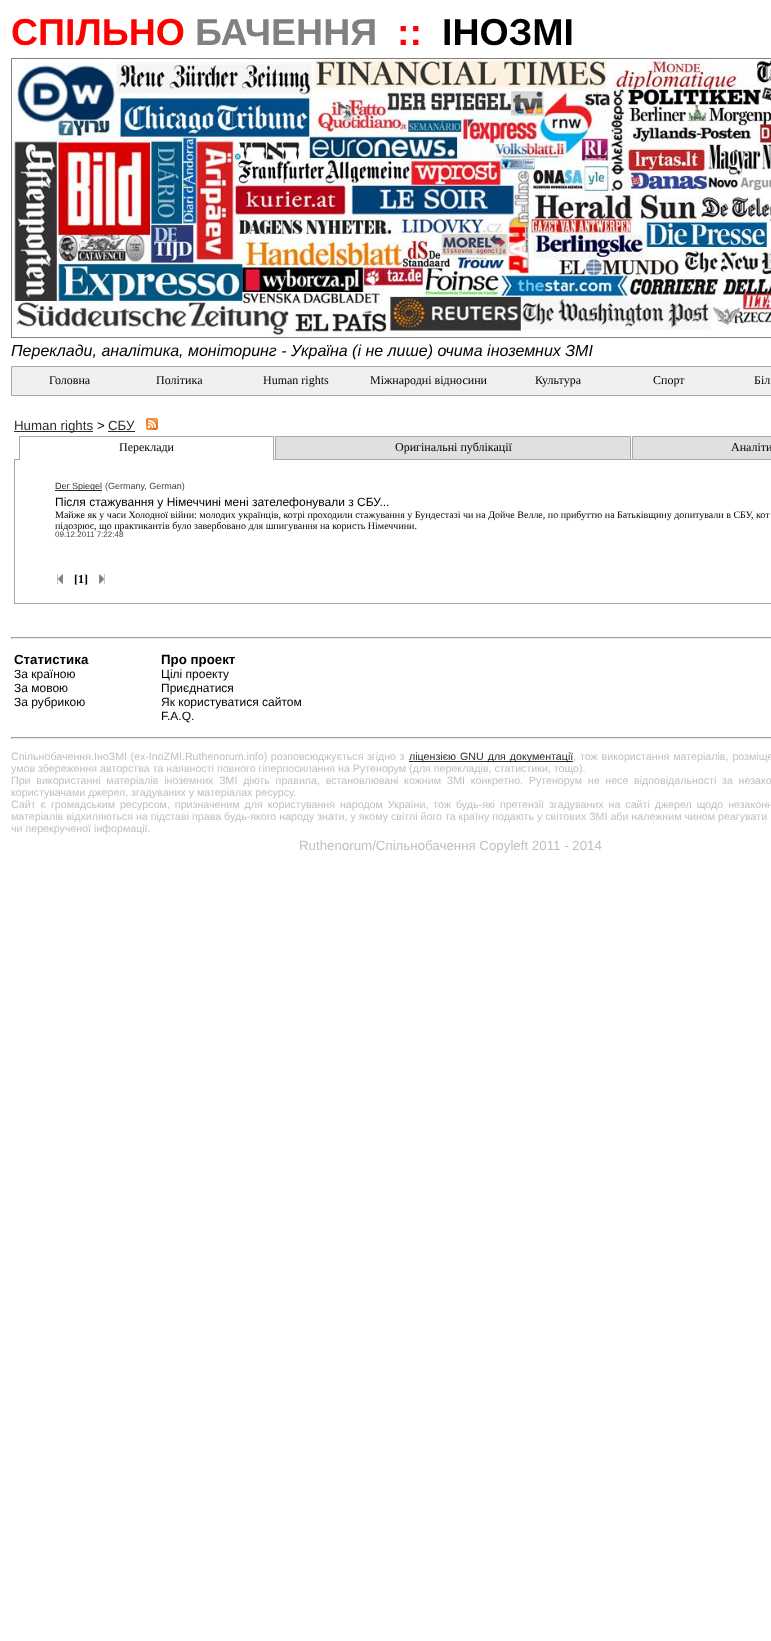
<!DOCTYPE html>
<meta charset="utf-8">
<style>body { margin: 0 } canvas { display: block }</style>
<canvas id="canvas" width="771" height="1641"></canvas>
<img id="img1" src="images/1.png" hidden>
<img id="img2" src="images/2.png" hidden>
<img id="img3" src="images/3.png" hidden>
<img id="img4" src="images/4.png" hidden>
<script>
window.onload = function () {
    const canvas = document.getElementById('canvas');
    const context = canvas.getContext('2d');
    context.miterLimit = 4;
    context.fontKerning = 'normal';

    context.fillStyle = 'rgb(255, 255, 255)';
    context.fillRect(0, 0, 771, 1641);
    context.strokeStyle = 'rgb(128, 128, 128)';
    context.strokeRect(11.5, 58.5, 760, 279);
    context.drawImage(document.getElementById('img1'), 12, 59, 759, 278);
    context.fillStyle = 'rgb(240, 240, 240)';
    context.beginPath();
    context.rect(11.5, 366.5, 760, 29);
    context.fill();
    context.strokeStyle = 'rgb(168, 168, 168)';
    context.stroke();
    context.fillStyle = 'rgb(44, 44, 44)';
    context.fillRect(14, 431, 79, 1);
    context.fillRect(108, 431, 27, 1);
    context.drawImage(document.getElementById('img2'), 146, 418, 12, 12);
    context.fillStyle = 'rgb(168, 168, 168)';
    context.fillRect(19, 436, 255, 1);
    context.fillRect(273, 436, 1, 24);
    context.fillRect(19, 436, 1, 24);
    context.fillStyle = 'rgb(224, 224, 224)';
    context.beginPath();
    context.rect(275.5, 436.5, 355, 23);
    context.fill();
    context.stroke();
    context.beginPath();
    context.rect(632.5, 436.5, 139, 23);
    context.fill();
    context.stroke();
    context.fillStyle = 'rgb(168, 168, 168)';
    context.fillRect(274, 459, 1, 1);
    context.fillRect(631, 459, 1, 1);
    context.fillRect(14, 459, 5, 1);
    context.fillRect(14, 603, 757, 1);
    context.fillRect(14, 460, 1, 144);
    context.fillStyle = 'rgb(44, 44, 44)';
    context.fillRect(55, 490, 47, 1);
    context.drawImage(document.getElementById('img3'), 57, 574, 6, 10);
    context.drawImage(document.getElementById('img4'), 99, 574, 6, 10);
    context.fillStyle = 'rgb(159, 159, 159)';
    context.fillRect(11, 637, 760, 1);
    context.fillStyle = 'rgb(238, 238, 238)';
    context.fillRect(11, 638, 760, 1);
    context.fillStyle = 'rgb(159, 159, 159)';
    context.fillRect(11, 637, 1, 2);
    context.fillRect(11, 737, 760, 1);
    context.fillStyle = 'rgb(238, 238, 238)';
    context.fillRect(11, 738, 760, 1);
    context.fillStyle = 'rgb(159, 159, 159)';
    context.fillRect(11, 737, 1, 2);
    context.fillStyle = 'rgb(44, 44, 44)';
    context.fillRect(409, 761, 164, 1);
    context.font = 'bold 37.5px Liberation Sans';
    context.fillStyle = 'rgb(255, 0, 0)';
    context.fillText('СПІЛЬНО', 11, 45);
    context.fillStyle = 'rgb(128, 128, 128)';
    context.fillText('БАЧЕННЯ', 195, 45);
    context.fillStyle = 'rgb(255, 0, 0)';
    context.fillText('::', 397, 45);
    context.fillStyle = 'rgb(0, 0, 0)';
    context.fillText('ІНОЗМІ', 442, 45);
    context.font = 'italic 16px Liberation Sans';
    context.fillText('Переклади, аналітика, моніторинг - Україна (і не лише) очима іноземних ЗМІ', 11, 356);
    context.font = '12px Liberation Serif';
    context.fillText('Головна', 49, 384);
    context.fillText('Політика', 156, 384);
    context.fillText('Human rights', 263, 384);
    context.fillText('Міжнародні відносини', 370, 384);
    context.fillText('Культура', 535, 384);
    context.fillText('Спорт', 653, 384);
    context.fillText('Біл', 754, 384);
    context.font = '13.3px Liberation Sans';
    context.fillStyle = 'rgb(44, 44, 44)';
    context.fillText('Human rights', 14, 430);
    context.fillStyle = 'rgb(0, 0, 0)';
    context.fillText('>', 97, 430);
    context.fillStyle = 'rgb(44, 44, 44)';
    context.fillText('СБУ', 108, 430);
    context.font = '12px Liberation Serif';
    context.fillStyle = 'rgb(0, 0, 0)';
    context.fillText('Переклади', 119, 451);
    context.fillText('Оригінальні публікації', 395, 451);
    context.fillText('Аналіти', 731, 451);
    context.font = '9px Liberation Sans';
    context.fillStyle = 'rgb(44, 44, 44)';
    context.fillText('Der Spiegel', 55, 489);
    context.fillStyle = 'rgb(67, 67, 67)';
    context.fillText('(Germany, German)', 105, 489);
    context.font = '12px Liberation Sans';
    context.fillStyle = 'rgb(0, 0, 0)';
    context.fillText('Після стажування у Німеччині мені зателефонували з СБУ...', 55, 506);
    context.font = '10px Liberation Serif';
    context.fillText('Майже як у часи Холодної війни: молодих українців, котрі проходили стажування у Бундестазі чи на Дойче Велле, по прибуттю на Батьківщину допитували в СБУ, кот', 55, 518);
    context.fillText('підозрює, що практикантів було завербовано для шпигування на користь Німеччини.', 55, 529);
    context.font = '8px Liberation Sans';
    context.fillStyle = 'rgb(67, 67, 67)';
    context.fillText('09.12.2011 7:22:48', 55, 537);
    context.font = 'bold 12px Liberation Serif';
    context.fillStyle = 'rgb(0, 0, 0)';
    context.fillText('[1]', 74, 583);
    context.font = 'bold 13.3px Liberation Sans';
    context.fillText('Статистика', 14, 664);
    context.font = '12px Liberation Sans';
    context.fillText('За країною', 14, 678);
    context.fillText('За мовою', 14, 692);
    context.fillText('За рубрикою', 14, 706);
    context.font = 'bold 13.3px Liberation Sans';
    context.fillText('Про проект', 161, 664);
    context.font = '12px Liberation Sans';
    context.fillText('Цілі проекту', 161, 678);
    context.fillText('Приєднатися', 161, 692);
    context.fillText('Як користуватися сайтом', 161, 706);
    context.fillText('F.A.Q.', 161, 720);
    context.wordSpacing = '0.5px';
    context.font = '10.67px Liberation Sans';
    context.fillStyle = 'rgb(192, 192, 192)';
    context.fillText('Спільнобачення.ІноЗМІ (ex-InoZMI.Ruthenorum.info) розповсюджується згідно з', 11, 760);
    context.wordSpacing = '1px';
    context.fillStyle = 'rgb(44, 44, 44)';
    context.fillText('ліцензією GNU для документації', 409, 760);
    context.fillStyle = 'rgb(192, 192, 192)';
    context.fillText(', тож використання матеріалів, розміще', 573, 760);
    context.wordSpacing = '0px';
    context.fillText('умов збереження авторства та наявності повного гіперпосилання на Рутенорум (для перекладів, статистики, тощо).', 11, 772);
    context.wordSpacing = '2.75px';
    context.fillText('При використанні матеріалів іноземних ЗМІ діють правила, встановлювані кожним ЗМІ конкретно. Рутенорум не несе відповідальності за незако', 11, 784);
    context.wordSpacing = '0px';
    context.fillText('користувачами джерел, згадуваних у матеріалах ресурсу.', 11, 796);
    context.wordSpacing = '2px';
    context.fillText('Сайт є громадським ресурсом, призначеним для користування народом України, тож будь-які претензії згадуваних на сайті джерел щодо незаконн', 11, 808);
    context.wordSpacing = '0px';
    context.fillText('матеріалів відхиляються на підставі права будь-якого народу знати, у якому світлі його та країну подають у світових ЗМІ аби належним чином реагувати', 11, 820);
    context.fillText('чи перекрученої інформації.', 11, 832);
    context.font = '13.3px Liberation Sans';
    context.fillText('Ruthenorum/Спільнобачення Copyleft 2011 - 2014', 299, 850);
};
</script>
